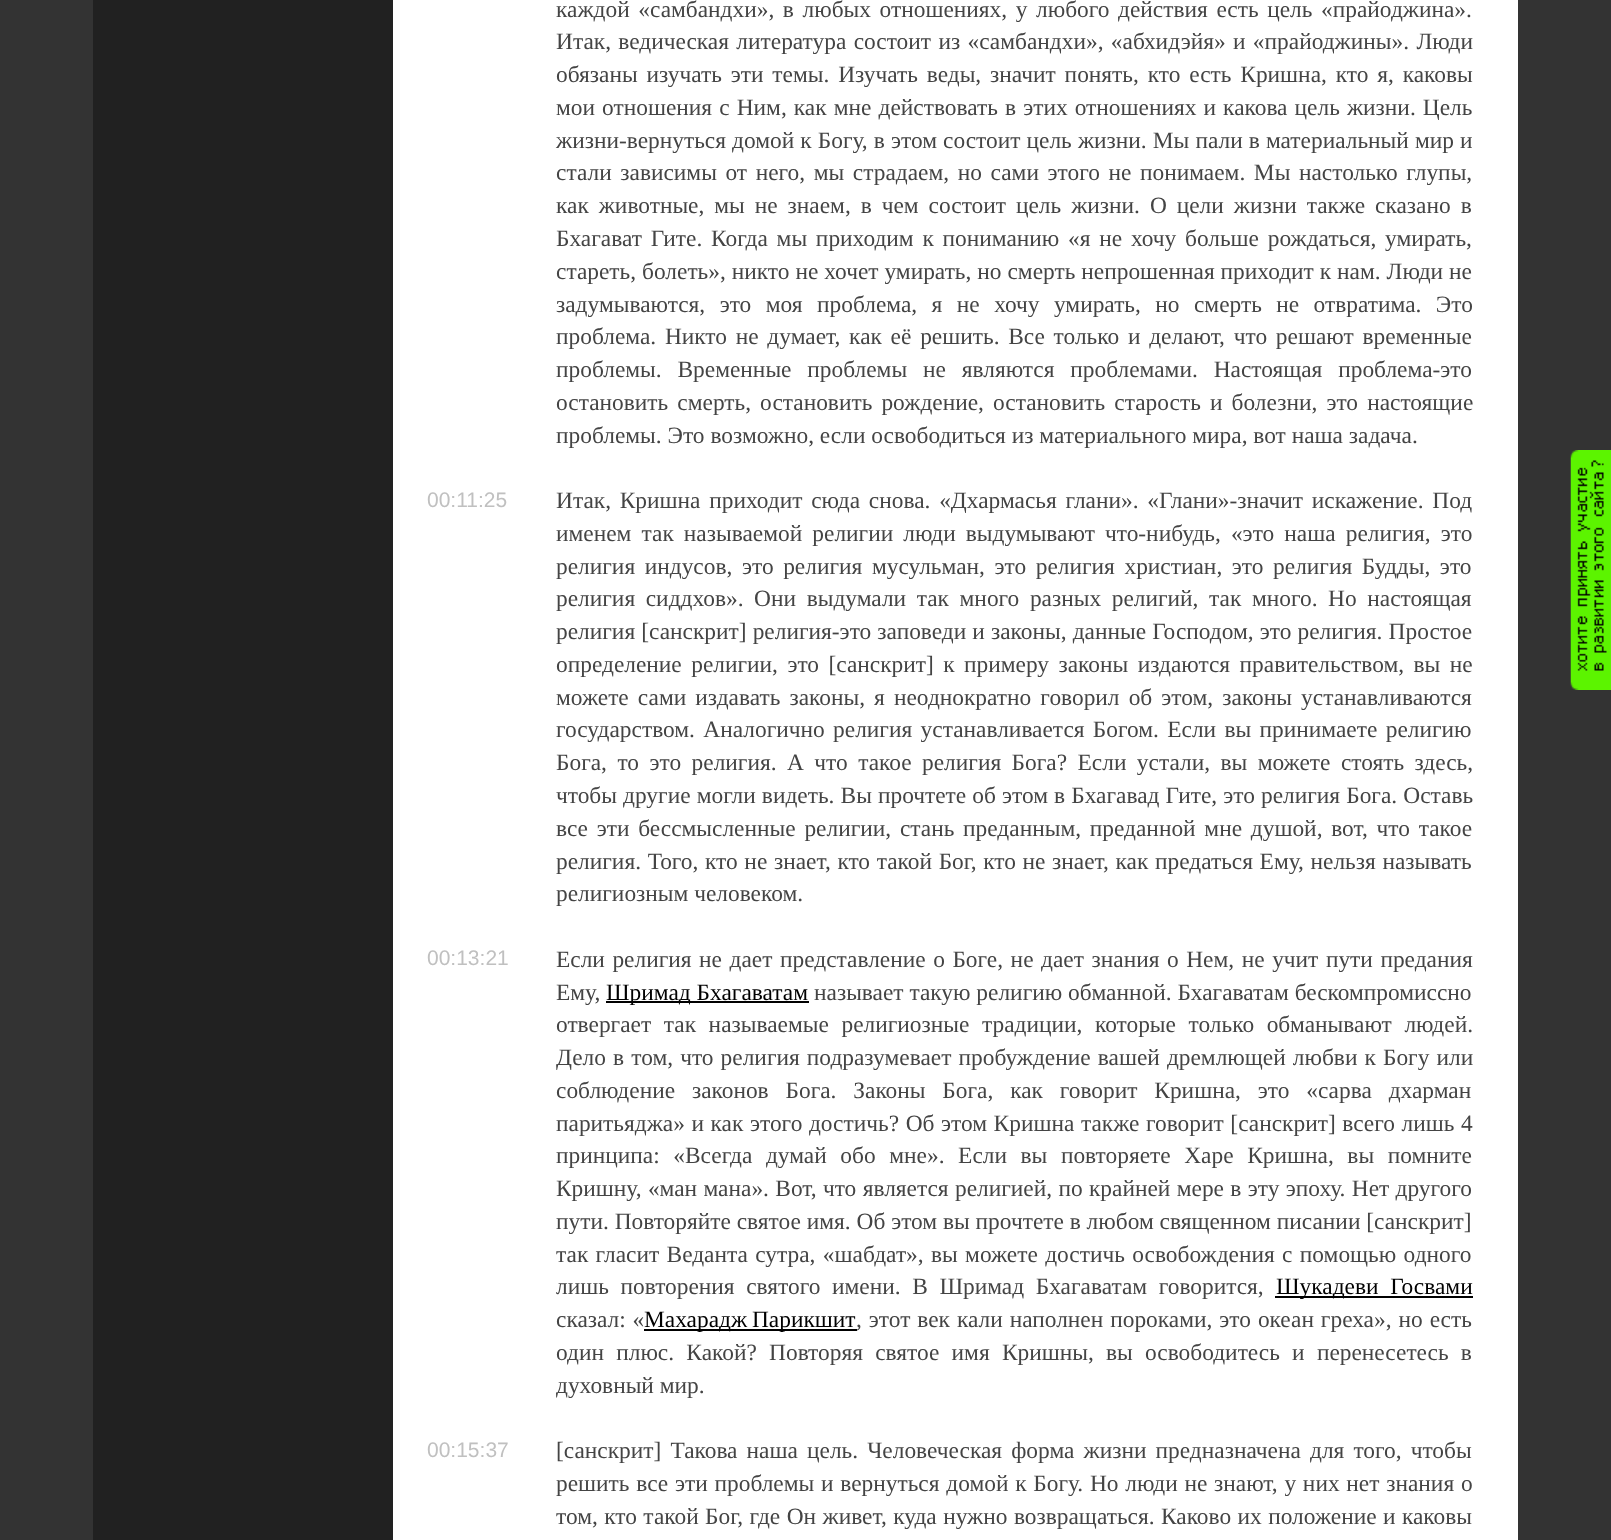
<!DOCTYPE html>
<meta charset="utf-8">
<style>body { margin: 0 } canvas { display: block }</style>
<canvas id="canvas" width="1611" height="1540"></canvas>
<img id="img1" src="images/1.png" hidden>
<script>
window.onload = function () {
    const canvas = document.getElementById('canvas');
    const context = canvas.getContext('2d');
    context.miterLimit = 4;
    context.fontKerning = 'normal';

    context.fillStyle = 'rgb(51, 51, 51)';
    context.fillRect(0, 0, 1611, 1540);
    context.fillStyle = 'rgb(255, 255, 255)';
    context.fillRect(393, 0, 1125, 1540);
    context.fillStyle = 'rgb(33, 33, 33)';
    context.fillRect(93, 0, 300, 1540);
    context.fillStyle = 'rgb(0, 0, 0)';
    context.fillRect(606, 1001, 203, 2);
    context.fillRect(1275, 1296, 198, 2);
    context.fillRect(644, 1329, 213, 2);
    context.drawImage(document.getElementById('img1'), 1570, 450, 41, 240);
    context.wordSpacing = '2.75px';
    context.font = '23.4px Liberation Serif';
    context.fillStyle = 'rgb(68, 68, 68)';
    context.fillText('каждой «самбандхи», в любых отношениях, у любого действия есть цель «прайоджина».', 556, 17);
    context.wordSpacing = '1.5px';
    context.fillText('Итак, ведическая литература состоит из «самбандхи», «абхидэйя» и «прайоджины». Люди', 556, 49);
    context.wordSpacing = '3px';
    context.fillText('обязаны изучать эти темы. Изучать веды, значит понять, кто есть Кришна, кто я, каковы', 556, 82);
    context.wordSpacing = '1.25px';
    context.fillText('мои отношения с Ним, как мне действовать в этих отношениях и какова цель жизни. Цель', 556, 115);
    context.wordSpacing = '0.25px';
    context.fillText('жизни-вернуться домой к Богу, в этом состоит цель жизни. Мы пали в материальный мир и', 556, 148);
    context.wordSpacing = '2.75px';
    context.fillText('стали зависимы от него, мы страдаем, но сами этого не понимаем. Мы настолько глупы,', 556, 180);
    context.wordSpacing = '4.1px';
    context.fillText('как животные, мы не знаем, в чем состоит цель жизни. О цели жизни также сказано в', 556, 213);
    context.wordSpacing = '2.9px';
    context.fillText('Бхагават Гите. Когда мы приходим к пониманию «я не хочу больше рождаться, умирать,', 556, 246);
    context.wordSpacing = '0.1px';
    context.fillText('стареть, болеть», никто не хочет умирать, но смерть непрошенная приходит к нам. Люди не', 556, 279);
    context.wordSpacing = '8.6px';
    context.fillText('задумываются, это моя проблема, я не хочу умирать, но смерть не отвратима. Это', 556, 312);
    context.wordSpacing = '2.9px';
    context.fillText('проблема. Никто не думает, как её решить. Все только и делают, что решают временные', 556, 344);
    context.wordSpacing = '10px';
    context.fillText('проблемы. Временные проблемы не являются проблемами. Настоящая проблема-это', 556, 377);
    context.wordSpacing = '3.25px';
    context.fillText('остановить смерть, остановить рождение, остановить старость и болезни, это настоящие', 556, 410);
    context.wordSpacing = '0px';
    context.fillText('проблемы. Это возможно, если освободиться из материального мира, вот наша задача.', 556, 443);
    context.font = '21px Liberation Sans';
    context.fillStyle = 'rgb(192, 192, 192)';
    context.fillText('00:11:25', 427, 507);
    context.wordSpacing = '2.9px';
    context.font = '23.4px Liberation Serif';
    context.fillStyle = 'rgb(68, 68, 68)';
    context.fillText('Итак, Кришна приходит сюда снова. «Дхармасья глани». «Глани»-значит искажение. Под', 556, 508);
    context.wordSpacing = '4.25px';
    context.fillText('именем так называемой религии люди выдумывают что-нибудь, «это наша религия, это', 556, 541);
    context.wordSpacing = '3.75px';
    context.fillText('религия индусов, это религия мусульман, это религия христиан, это религия Будды, это', 556, 574);
    context.wordSpacing = '4.75px';
    context.fillText('религия сиддхов». Они выдумали так много разных религий, так много. Но настоящая', 556, 606);
    context.wordSpacing = '0.25px';
    context.fillText('религия [санскрит] религия-это заповеди и законы, данные Господом, это религия. Простое', 556, 639);
    context.wordSpacing = '3.6px';
    context.fillText('определение религии, это [санскрит] к примеру законы издаются правительством, вы не', 556, 672);
    context.wordSpacing = '3.25px';
    context.fillText('можете сами издавать законы, я неоднократно говорил об этом, законы устанавливаются', 556, 705);
    context.wordSpacing = '2.5px';
    context.fillText('государством. Аналогично религия устанавливается Богом. Если вы принимаете религию', 556, 737);
    context.wordSpacing = '4.6px';
    context.fillText('Бога, то это религия. А что такое религия Бога? Если устали, вы можете стоять здесь,', 556, 770);
    context.wordSpacing = '0.25px';
    context.fillText('чтобы другие могли видеть. Вы прочтете об этом в Бхагавад Гите, это религия Бога. Оставь', 556, 803);
    context.wordSpacing = '2.9px';
    context.fillText('все эти бессмысленные религии, стань преданным, преданной мне душой, вот, что такое', 556, 836);
    context.wordSpacing = '0.8px';
    context.fillText('религия. Того, кто не знает, кто такой Бог, кто не знает, как предаться Ему, нельзя называть', 556, 869);
    context.wordSpacing = '0px';
    context.fillText('религиозным человеком.', 556, 901);
    context.font = '21px Liberation Sans';
    context.fillStyle = 'rgb(192, 192, 192)';
    context.fillText('00:13:21', 427, 965);
    context.wordSpacing = '1.7px';
    context.font = '23.4px Liberation Serif';
    context.fillStyle = 'rgb(68, 68, 68)';
    context.fillText('Если религия не дает представление о Боге, не дает знания о Нем, не учит пути предания', 556, 967);
    context.wordSpacing = '0px';
    context.fillText('Ему,', 556, 1000);
    context.fillStyle = 'rgb(0, 0, 0)';
    context.fillText('Шримад Бхагаватам', 606, 1000);
    context.fillStyle = 'rgb(68, 68, 68)';
    context.fillText('называет такую религию обманной. Бхагаватам бескомпромиссно', 814, 1000);
    context.wordSpacing = '6.75px';
    context.fillText('отвергает так называемые религиозные традиции, которые только обманывают людей.', 556, 1032);
    context.wordSpacing = '1.25px';
    context.fillText('Дело в том, что религия подразумевает пробуждение вашей дремлющей любви к Богу или', 556, 1065);
    context.wordSpacing = '11px';
    context.fillText('соблюдение законов Бога. Законы Бога, как говорит Кришна, это «сарва дхарман', 556, 1098);
    context.wordSpacing = '0.75px';
    context.fillText('паритьяджа» и как этого достичь? Об этом Кришна также говорит [санскрит] всего лишь 4', 556, 1131);
    context.wordSpacing = '7.75px';
    context.fillText('принципа: «Всегда думай обо мне». Если вы повторяете Харе Кришна, вы помните', 556, 1163);
    context.wordSpacing = '0.5px';
    context.fillText('Кришну, «ман мана». Вот, что является религией, по крайней мере в эту эпоху. Нет другого', 556, 1196);
    context.wordSpacing = '0px';
    context.fillText('пути. Повторяйте святое имя. Об этом вы прочтете в любом священном писании [санскрит]', 556, 1229);
    context.wordSpacing = '1.5px';
    context.fillText('так гласит Веданта сутра, «шабдат», вы можете достичь освобождения с помощью одного', 556, 1262);
    context.wordSpacing = '5.75px';
    context.fillText('лишь повторения святого имени. В Шримад Бхагаватам говорится,', 556, 1294);
    context.fillStyle = 'rgb(0, 0, 0)';
    context.fillText('Шукадеви Госвами', 1276, 1294);
    context.wordSpacing = '1px';
    context.fillStyle = 'rgb(68, 68, 68)';
    context.fillText('сказал: «', 556, 1327);
    context.wordSpacing = '-1px';
    context.fillStyle = 'rgb(0, 0, 0)';
    context.fillText('Махарадж Парикшит', 644, 1327);
    context.wordSpacing = '1.1px';
    context.fillStyle = 'rgb(68, 68, 68)';
    context.fillText(', этот век кали наполнен пороками, это океан греха», но есть', 856, 1327);
    context.wordSpacing = '6.4px';
    context.fillText('один плюс. Какой? Повторяя святое имя Кришны, вы освободитесь и перенесетесь в', 556, 1360);
    context.wordSpacing = '0px';
    context.fillText('духовный мир.', 556, 1393);
    context.font = '21px Liberation Sans';
    context.fillStyle = 'rgb(192, 192, 192)';
    context.fillText('00:15:37', 427, 1457);
    context.wordSpacing = '3.25px';
    context.font = '23.4px Liberation Serif';
    context.fillStyle = 'rgb(68, 68, 68)';
    context.fillText('[санскрит] Такова наша цель. Человеческая форма жизни предназначена для того, чтобы', 556, 1458);
    context.wordSpacing = '0.9px';
    context.fillText('решить все эти проблемы и вернуться домой к Богу. Но люди не знают, у них нет знания о', 556, 1491);
    context.wordSpacing = '0.6px';
    context.fillText('том, кто такой Бог, где Он живет, куда нужно возвращаться. Каково их положение и каковы', 556, 1524);
};
</script>
